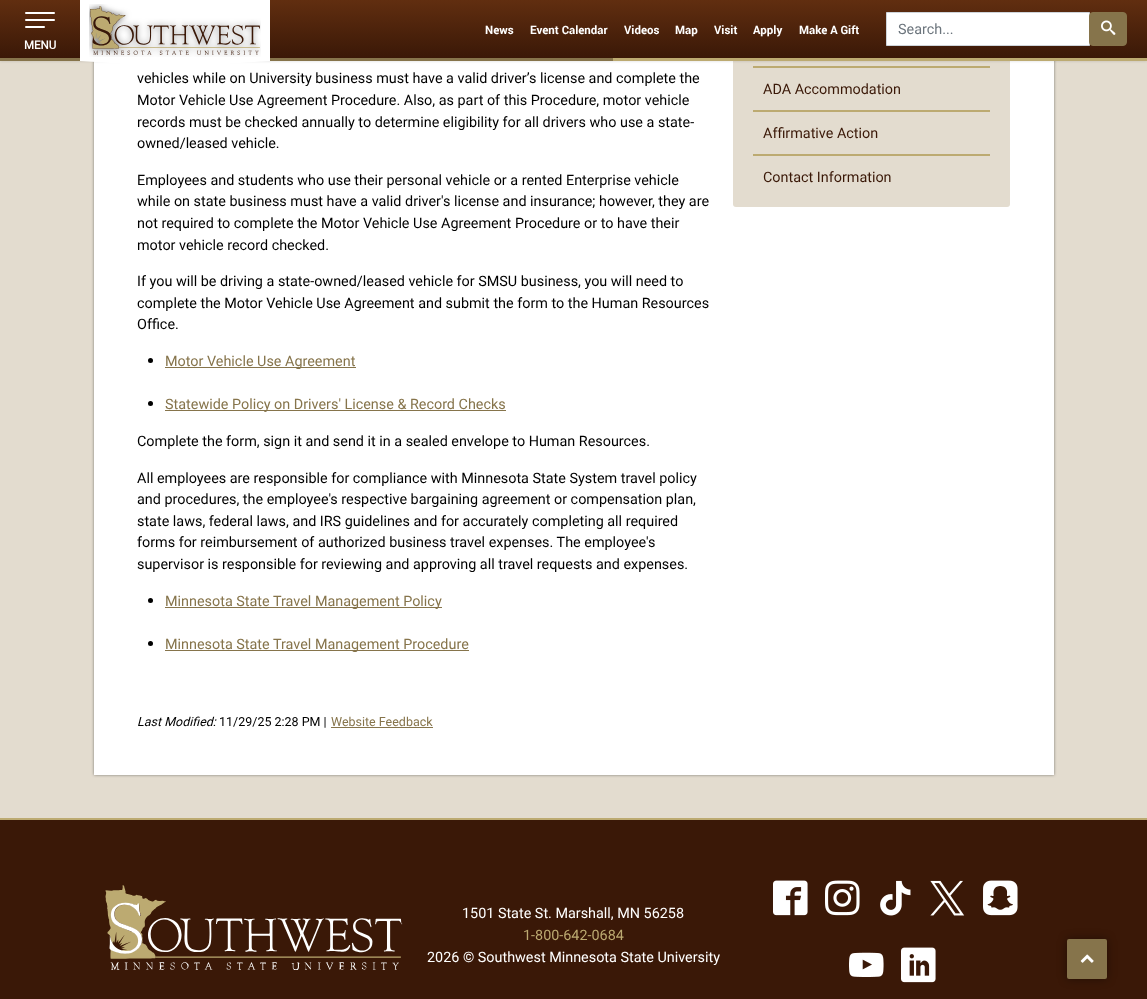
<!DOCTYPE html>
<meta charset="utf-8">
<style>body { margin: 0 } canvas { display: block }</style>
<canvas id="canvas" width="1147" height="999"></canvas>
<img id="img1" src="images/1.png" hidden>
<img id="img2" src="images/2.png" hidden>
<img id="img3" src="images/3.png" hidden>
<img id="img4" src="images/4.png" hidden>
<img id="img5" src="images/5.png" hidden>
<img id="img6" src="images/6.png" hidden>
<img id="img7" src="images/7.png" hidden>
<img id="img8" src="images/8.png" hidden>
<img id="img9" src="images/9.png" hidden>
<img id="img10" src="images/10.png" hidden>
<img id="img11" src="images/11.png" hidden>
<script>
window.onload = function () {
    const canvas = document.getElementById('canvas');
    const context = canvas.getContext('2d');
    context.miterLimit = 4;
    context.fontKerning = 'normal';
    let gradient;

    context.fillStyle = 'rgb(227, 220, 207)';
    context.fillRect(0, 0, 1147, 999);
    context.fillStyle = 'rgba(0, 0, 0, 0.45)';
    context.filter = 'blur(1.5px)';
    context.beginPath();
    context.rect(94, -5, 960, 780);
    context.fill();
    context.filter = 'none';
    context.fillStyle = 'rgb(255, 255, 255)';
    context.fillRect(94, 61, 960, 714);
    context.fillStyle = 'rgb(227, 220, 207)';
    context.beginPath();
    context.roundRect(733, -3, 277, 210, 3);
    context.fill();
    context.fillStyle = 'rgb(188, 170, 113)';
    context.fillRect(753, 66, 237, 2);
    context.fillStyle = 'rgba(0, 0, 0, 0.15)';
    context.filter = 'blur(1.5px)';
    context.beginPath();
    context.rect(0, 0, 1147, 61);
    context.fill();
    context.filter = 'none';
    gradient = context.createLinearGradient(574, 0, 574, 58);
    gradient.addColorStop(0, 'rgb(97, 46, 16)');
    gradient.addColorStop(1, 'rgb(58, 24, 7)');
    context.fillStyle = gradient;
    context.fillRect(0, 0, 1147, 58);
    context.fillStyle = 'rgb(134, 116, 75)';
    context.fillRect(0, 58, 613, 3);
    context.fillStyle = 'rgb(255, 255, 255)';
    context.fillRect(80, 0, 190, 61);
    context.drawImage(document.getElementById('img1'), 89, 4, 172, 53);
    context.beginPath();
    context.moveTo(80, 61);
    context.lineTo(270, 61);
    context.lineTo(175, 67);
    context.closePath();
    context.fill();
    context.beginPath();
    context.rect(886.5, 12.5, 203, 33);
    context.fill();
    context.strokeStyle = 'rgb(206, 212, 218)';
    context.stroke();
    context.fillStyle = 'rgb(134, 116, 75)';
    context.beginPath();
    context.roundRect(1089.5, 12.5, 37, 33, 3.5);
    context.fill();
    context.strokeStyle = 'rgb(134, 116, 75)';
    context.stroke();
    context.drawImage(document.getElementById('img2'), 1101, 20, 15, 15);
    context.fillStyle = 'rgb(255, 255, 255)';
    context.beginPath();
    context.roundRect(25, 12, 30, 2, 1);
    context.fill();
    context.beginPath();
    context.roundRect(25, 19, 30, 2, 1);
    context.fill();
    context.beginPath();
    context.roundRect(25, 26, 20, 2, 1);
    context.fill();
    context.fillStyle = 'rgb(188, 170, 113)';
    context.fillRect(613, 58, 534, 3);
    context.fillStyle = 'rgb(0, 0, 0)';
    context.beginPath();
    context.arc(150.5, 360.5, 2.5, 0, 2 * Math.PI);
    context.fill();
    context.fillStyle = 'rgb(134, 116, 75)';
    context.fillRect(165, 367, 191, 1);
    context.fillStyle = 'rgb(0, 0, 0)';
    context.beginPath();
    context.arc(150.5, 403.5, 2.5, 0, 2 * Math.PI);
    context.fill();
    context.fillStyle = 'rgb(134, 116, 75)';
    context.fillRect(165, 410, 341, 1);
    context.fillStyle = 'rgb(0, 0, 0)';
    context.beginPath();
    context.arc(150.5, 600.5, 2.5, 0, 2 * Math.PI);
    context.fill();
    context.fillStyle = 'rgb(134, 116, 75)';
    context.fillRect(165, 607, 277, 1);
    context.fillStyle = 'rgb(0, 0, 0)';
    context.beginPath();
    context.arc(150.5, 643.5, 2.5, 0, 2 * Math.PI);
    context.fill();
    context.fillStyle = 'rgb(134, 116, 75)';
    context.fillRect(165, 650, 304, 1);
    context.fillStyle = 'rgb(188, 170, 113)';
    context.fillRect(753, 110, 237, 2);
    context.fillRect(753, 154, 237, 2);
    context.fillStyle = 'rgb(134, 116, 75)';
    context.fillRect(331, 727, 102, 1);
    context.fillStyle = 'rgb(58, 24, 7)';
    context.fillRect(0, 820, 1147, 179);
    context.fillStyle = 'rgb(188, 170, 113)';
    context.fillRect(0, 818, 1147, 2);
    context.drawImage(document.getElementById('img3'), 105, 885, 298, 85);
    context.drawImage(document.getElementById('img4'), 773, 880, 35, 36);
    context.drawImage(document.getElementById('img5'), 825, 880, 35, 36);
    context.drawImage(document.getElementById('img6'), 880, 880, 31, 36);
    context.drawImage(document.getElementById('img7'), 930, 880, 35, 36);
    context.drawImage(document.getElementById('img8'), 983, 880, 35, 36);
    context.drawImage(document.getElementById('img9'), 849, 952, 35, 25);
    context.drawImage(document.getElementById('img10'), 901, 947, 35, 36);
    context.fillStyle = 'rgba(0, 0, 0, 0.4)';
    context.filter = 'blur(5px)';
    context.beginPath();
    context.roundRect(1067, 939, 40, 40, 2);
    context.fill();
    context.filter = 'none';
    context.fillStyle = 'rgb(134, 116, 75)';
    context.beginPath();
    context.roundRect(1067, 939, 40, 40, 2);
    context.fill();
    context.drawImage(document.getElementById('img11'), 1080, 954, 14, 9);
    context.font = 'bold 11.5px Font';
    context.fillStyle = 'rgb(255, 255, 255)';
    context.fillText('News', 485, 34);
    context.fillText('Event Calendar', 530, 34);
    context.fillText('Videos', 624, 34);
    context.fillText('Map', 675, 34);
    context.fillText('Visit', 714, 34);
    context.fillText('Apply', 753, 34);
    context.fillText('Make A Gift', 799, 34);
    context.font = '14.4px Roboto';
    context.fillStyle = 'rgb(108, 117, 125)';
    context.fillText('Search...', 898, 34);
    context.font = 'bold 11.5px Roboto';
    context.fillStyle = 'rgb(255, 255, 255)';
    context.fillText('MENU', 24, 49);
    context.font = '14.4px Roboto';
    context.fillStyle = 'rgb(0, 0, 0)';
    context.fillText('vehicles while on University business must have a valid driver’s license and complete the', 137, 83);
    context.fillText('Motor Vehicle Use Agreement Procedure. Also, as part of this Procedure, motor vehicle', 137, 105);
    context.fillText('records must be checked annually to determine eligibility for all drivers who use a state-', 137, 127);
    context.fillText('owned/leased vehicle.', 137, 148);
    context.fillText('Employees and students who use their personal vehicle or a rented Enterprise vehicle', 137, 185);
    context.fillText('while on state business must have a valid driver\'s license and insurance; however, they are', 137, 206);
    context.fillText('not required to complete the Motor Vehicle Use Agreement Procedure or to have their', 137, 228);
    context.fillText('motor vehicle record checked.', 137, 250);
    context.fillText('If you will be driving a state-owned/leased vehicle for SMSU business, you will need to', 137, 286);
    context.fillText('complete the Motor Vehicle Use Agreement and submit the form to the Human Resources', 137, 308);
    context.fillText('Office.', 137, 329);
    context.fillStyle = 'rgb(134, 116, 75)';
    context.fillText('Motor Vehicle Use Agreement', 165, 366);
    context.fillText('Statewide Policy on Drivers\' License & Record Checks', 165, 409);
    context.fillStyle = 'rgb(0, 0, 0)';
    context.fillText('Complete the form, sign it and send it in a sealed envelope to Human Resources.', 137, 446);
    context.fillText('All employees are responsible for compliance with Minnesota State System travel policy', 137, 483);
    context.fillText('and procedures, the employee\'s respective bargaining agreement or compensation plan,', 137, 504);
    context.fillText('state laws, federal laws, and IRS guidelines and for accurately completing all required', 137, 526);
    context.fillText('forms for reimbursement of authorized business travel expenses. The employee\'s', 137, 547);
    context.fillText('supervisor is responsible for reviewing and approving all travel requests and expenses.', 137, 569);
    context.fillStyle = 'rgb(134, 116, 75)';
    context.fillText('Minnesota State Travel Management Policy', 165, 606);
    context.fillText('Minnesota State Travel Management Procedure', 165, 649);
    context.fillStyle = 'rgb(58, 24, 7)';
    context.fillText('ADA Accommodation', 763, 94);
    context.fillText('Affirmative Action', 763, 138);
    context.fillText('Contact Information', 763, 182);
    context.font = 'italic 12.5px Roboto';
    context.fillStyle = 'rgb(0, 0, 0)';
    context.fillText('Last Modified:', 137, 726);
    context.font = '12.5px Roboto';
    context.fillText('11/29/25 2:28 PM |', 219, 726);
    context.fillStyle = 'rgb(134, 116, 75)';
    context.fillText('Website Feedback', 331, 726);
    context.font = '14.4px Roboto';
    context.fillStyle = 'rgb(255, 255, 255)';
    context.fillText('1501 State St. Marshall, MN 56258', 462, 918);
    context.fillStyle = 'rgb(188, 170, 113)';
    context.fillText('1-800-642-0684', 523, 940);
    context.fillStyle = 'rgb(255, 255, 255)';
    context.fillText('2026 © Southwest Minnesota State University', 427, 962);
};
</script>
